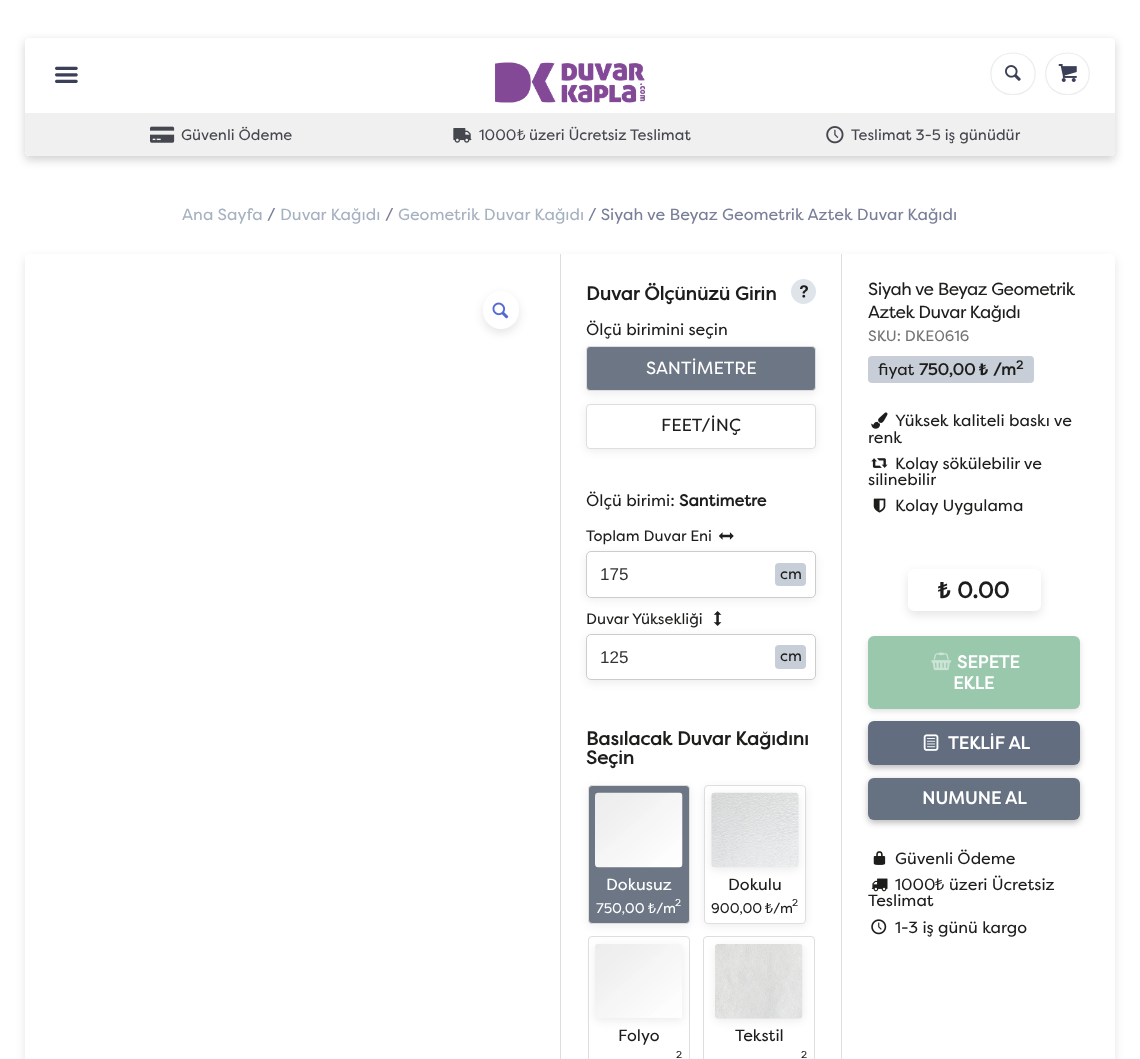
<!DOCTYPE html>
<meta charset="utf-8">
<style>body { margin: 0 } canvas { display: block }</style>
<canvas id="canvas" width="1140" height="1059"></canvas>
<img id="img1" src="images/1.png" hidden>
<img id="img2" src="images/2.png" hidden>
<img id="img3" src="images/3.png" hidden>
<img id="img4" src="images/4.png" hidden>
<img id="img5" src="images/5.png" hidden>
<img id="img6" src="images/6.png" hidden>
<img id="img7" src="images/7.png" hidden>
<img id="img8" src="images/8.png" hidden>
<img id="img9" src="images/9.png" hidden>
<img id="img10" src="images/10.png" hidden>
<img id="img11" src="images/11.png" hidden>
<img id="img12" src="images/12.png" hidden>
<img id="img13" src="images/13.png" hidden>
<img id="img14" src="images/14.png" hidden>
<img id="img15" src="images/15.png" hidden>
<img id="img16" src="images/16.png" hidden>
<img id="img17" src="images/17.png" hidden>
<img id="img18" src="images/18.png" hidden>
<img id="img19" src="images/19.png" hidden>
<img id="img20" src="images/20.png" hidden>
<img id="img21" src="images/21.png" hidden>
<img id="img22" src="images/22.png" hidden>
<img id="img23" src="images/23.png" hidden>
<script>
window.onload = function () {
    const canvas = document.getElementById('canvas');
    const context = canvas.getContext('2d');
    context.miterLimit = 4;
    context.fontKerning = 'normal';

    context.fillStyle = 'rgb(255, 255, 255)';
    context.fillRect(0, 0, 1140, 1059);
    context.save();
    context.beginPath();
    context.moveTo(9, 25);
    context.lineTo(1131, 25);
    context.lineTo(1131, 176);
    context.lineTo(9, 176);
    context.closePath();
    context.moveTo(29, 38);
    context.lineTo(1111, 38);
    context.bezierCurveTo(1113, 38, 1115, 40, 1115, 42);
    context.lineTo(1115, 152);
    context.bezierCurveTo(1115, 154, 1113, 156, 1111, 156);
    context.lineTo(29, 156);
    context.bezierCurveTo(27, 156, 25, 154, 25, 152);
    context.lineTo(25, 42);
    context.bezierCurveTo(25, 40, 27, 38, 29, 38);
    context.closePath();
    context.clip('evenodd');
    context.fillStyle = 'rgba(0, 0, 0, 0.18)';
    context.filter = 'blur(5px)';
    context.beginPath();
    context.roundRect(25, 41, 1090, 119, 4);
    context.fill();
    context.filter = 'none';
    context.restore();
    context.drawImage(document.getElementById('img1'), 55, 66, 23, 17);
    context.drawImage(document.getElementById('img2'), 495, 62, 150, 41);
    context.beginPath();
    context.moveTo(1013, 53);
    context.bezierCurveTo(1042.5, 53, 1042.5, 94.5, 1013, 94.5);
    context.bezierCurveTo(983.5, 94.5, 983.5, 53, 1013, 53);
    context.closePath();
    context.strokeStyle = 'rgb(236, 236, 236)';
    context.lineWidth = 1.2;
    context.stroke();
    context.drawImage(document.getElementById('img3'), 1005, 65, 16, 16);
    context.beginPath();
    context.moveTo(1067.5, 53);
    context.bezierCurveTo(1096.5, 53, 1096.5, 94.5, 1067.5, 94.5);
    context.bezierCurveTo(1038.5, 94.5, 1038.5, 53, 1067.5, 53);
    context.closePath();
    context.stroke();
    context.drawImage(document.getElementById('img4'), 1058, 64, 19, 18);
    context.fillStyle = 'rgb(240, 240, 241)';
    context.beginPath();
    context.roundRect(25, 113, 1090, 43, [0, 0, 5, 5]);
    context.fill();
    context.drawImage(document.getElementById('img5'), 150, 126, 25, 17);
    context.drawImage(document.getElementById('img6'), 453, 128, 19, 15);
    context.drawImage(document.getElementById('img7'), 826, 126, 18, 18);
    context.save();
    context.beginPath();
    context.moveTo(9, 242);
    context.lineTo(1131, 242);
    context.lineTo(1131, 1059);
    context.lineTo(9, 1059);
    context.closePath();
    context.moveTo(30, 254);
    context.lineTo(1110, 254);
    context.bezierCurveTo(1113, 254, 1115, 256, 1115, 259);
    context.lineTo(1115, 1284);
    context.bezierCurveTo(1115, 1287, 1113, 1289, 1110, 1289);
    context.lineTo(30, 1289);
    context.bezierCurveTo(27, 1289, 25, 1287, 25, 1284);
    context.lineTo(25, 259);
    context.bezierCurveTo(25, 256, 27, 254, 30, 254);
    context.closePath();
    context.clip('evenodd');
    context.fillStyle = 'rgba(0, 0, 0, 0.1)';
    context.filter = 'blur(5px)';
    context.beginPath();
    context.roundRect(25, 258, 1090, 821, 5);
    context.fill();
    context.filter = 'none';
    context.restore();
    context.fillStyle = 'rgba(0, 0, 0, 0.1)';
    context.filter = 'blur(5px)';
    context.beginPath();
    context.roundRect(483, 295, 36, 38, 18);
    context.fill();
    context.filter = 'none';
    context.fillStyle = 'rgb(255, 255, 255)';
    context.beginPath();
    context.roundRect(483, 291, 36, 38, 18);
    context.fill();
    context.drawImage(document.getElementById('img8'), 492, 302, 17, 17);
    context.fillStyle = 'rgb(222, 222, 222)';
    context.fillRect(560, 254, 1, 805);
    context.fillStyle = 'rgb(223, 228, 234)';
    context.beginPath();
    context.arc(803.5, 291.5, 12.5, 0, 2 * Math.PI);
    context.fill();
    context.drawImage(document.getElementById('img9'), 800, 285, 8, 13);
    context.fillStyle = 'rgba(0, 0, 0, 0.07)';
    context.filter = 'blur(4.5px)';
    context.beginPath();
    context.roundRect(586, 349, 230, 45, 4);
    context.fill();
    context.filter = 'none';
    context.fillStyle = 'rgb(109, 118, 132)';
    context.beginPath();
    context.roundRect(586.5, 346.5, 229, 44, 3.5);
    context.fill();
    context.strokeStyle = 'rgb(222, 222, 222)';
    context.lineWidth = 1;
    context.stroke();
    context.fillStyle = 'rgba(0, 0, 0, 0.07)';
    context.filter = 'blur(4.5px)';
    context.beginPath();
    context.roundRect(586, 406, 230, 45, 4);
    context.fill();
    context.filter = 'none';
    context.fillStyle = 'rgb(255, 255, 255)';
    context.beginPath();
    context.roundRect(586.5, 404.5, 229, 44, 3.5);
    context.fill();
    context.stroke();
    context.drawImage(document.getElementById('img10'), 718, 532, 16, 8);
    context.drawImage(document.getElementById('img11'), 713, 611, 9, 15);
    context.fillStyle = 'rgba(0, 0, 0, 0.07)';
    context.filter = 'blur(4.5px)';
    context.beginPath();
    context.roundRect(586, 554, 230, 46, 5);
    context.fill();
    context.filter = 'none';
    context.fillStyle = 'rgb(255, 255, 255)';
    context.beginPath();
    context.roundRect(586.5, 551.5, 229, 46, 4.5);
    context.fill();
    context.strokeStyle = 'rgb(204, 204, 204)';
    context.stroke();
    context.fillStyle = 'rgb(199, 206, 216)';
    context.beginPath();
    context.roundRect(775, 563, 31, 23, 4);
    context.fill();
    context.fillStyle = 'rgba(0, 0, 0, 0.07)';
    context.filter = 'blur(4.5px)';
    context.beginPath();
    context.roundRect(586, 636, 230, 47, 5);
    context.fill();
    context.filter = 'none';
    context.fillStyle = 'rgb(255, 255, 255)';
    context.beginPath();
    context.roundRect(586.5, 634.5, 229, 45, 4.5);
    context.fill();
    context.stroke();
    context.fillStyle = 'rgb(199, 206, 216)';
    context.beginPath();
    context.roundRect(775, 645, 31, 24, 4);
    context.fill();
    context.fillStyle = 'rgba(0, 0, 0, 0.07)';
    context.filter = 'blur(4.5px)';
    context.beginPath();
    context.roundRect(588, 788, 102, 138, 4);
    context.fill();
    context.filter = 'none';
    context.fillStyle = 'rgb(109, 118, 132)';
    context.beginPath();
    context.roundRect(588.5, 785.5, 101, 138, 3.5);
    context.fill();
    context.strokeStyle = 'rgb(222, 222, 222)';
    context.stroke();
    context.drawImage(document.getElementById('img12'), 595, 792, 88, 76);
    context.fillStyle = 'rgba(0, 0, 0, 0.07)';
    context.filter = 'blur(4.5px)';
    context.beginPath();
    context.roundRect(704, 788, 102, 138, 4);
    context.fill();
    context.filter = 'none';
    context.fillStyle = 'rgb(255, 255, 255)';
    context.beginPath();
    context.roundRect(704.5, 785.5, 101, 138, 3.5);
    context.fill();
    context.stroke();
    context.fillStyle = 'rgba(0, 0, 0, 0.07)';
    context.filter = 'blur(4.5px)';
    context.beginPath();
    context.roundRect(711, 795, 88, 75, 4);
    context.fill();
    context.filter = 'none';
    context.drawImage(document.getElementById('img13'), 711, 792, 88, 76);
    context.beginPath();
    context.roundRect(588.5, 936.5, 101, 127, 3.5);
    context.stroke();
    context.filter = 'blur(4.5px)';
    context.beginPath();
    context.roundRect(595, 946, 88, 75, 4);
    context.fill();
    context.filter = 'none';
    context.drawImage(document.getElementById('img14'), 595, 944, 87, 74);
    context.beginPath();
    context.roundRect(703.5, 936.5, 111, 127, 3.5);
    context.stroke();
    context.filter = 'blur(4.5px)';
    context.beginPath();
    context.roundRect(715, 946, 88, 75, 4);
    context.fill();
    context.filter = 'none';
    context.drawImage(document.getElementById('img15'), 715, 944, 88, 75);
    context.fillStyle = 'rgb(222, 222, 222)';
    context.fillRect(841, 254, 1, 805);
    context.fillStyle = 'rgb(199, 206, 216)';
    context.beginPath();
    context.roundRect(868, 356, 166, 27, 4);
    context.fill();
    context.drawImage(document.getElementById('img16'), 871, 412, 17, 17);
    context.drawImage(document.getElementById('img17'), 871, 458, 17, 10);
    context.drawImage(document.getElementById('img18'), 873, 498, 13, 15);
    context.fillStyle = 'rgba(0, 0, 0, 0.1)';
    context.filter = 'blur(5px)';
    context.beginPath();
    context.roundRect(908, 573, 133, 42, 6);
    context.fill();
    context.filter = 'none';
    context.fillStyle = 'rgb(255, 255, 255)';
    context.beginPath();
    context.roundRect(908, 569, 133, 42, 6);
    context.fill();
    context.fillStyle = 'rgba(127, 127, 127, 0.26)';
    context.filter = 'blur(3px)';
    context.beginPath();
    context.roundRect(868, 639, 212, 72, 6);
    context.fill();
    context.filter = 'none';
    context.fillStyle = 'rgb(153, 200, 173)';
    context.beginPath();
    context.roundRect(868, 636, 212, 73, 6);
    context.fill();
    context.drawImage(document.getElementById('img19'), 931, 652, 21, 19);
    context.fillStyle = 'rgba(0, 0, 0, 0.26)';
    context.filter = 'blur(3px)';
    context.beginPath();
    context.roundRect(868, 724, 212, 44, 6);
    context.fill();
    context.filter = 'none';
    context.fillStyle = 'rgb(98, 110, 128)';
    context.beginPath();
    context.roundRect(868, 721, 212, 44, 6);
    context.fill();
    context.drawImage(document.getElementById('img20'), 923, 734, 16, 17);
    context.fillStyle = 'rgba(0, 0, 0, 0.26)';
    context.filter = 'blur(3px)';
    context.beginPath();
    context.roundRect(868, 780, 212, 43, 6);
    context.fill();
    context.filter = 'none';
    context.fillStyle = 'rgb(102, 113, 130)';
    context.beginPath();
    context.roundRect(868, 778, 212, 42, 6);
    context.fill();
    context.drawImage(document.getElementById('img21'), 873, 851, 13, 14);
    context.drawImage(document.getElementById('img22'), 871, 878, 17, 14);
    context.drawImage(document.getElementById('img23'), 871, 919, 16, 16);
    context.font = '15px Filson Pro';
    context.fillStyle = 'rgb(69, 71, 78)';
    context.fillText('Güvenli Ödeme', 181, 140);
    context.fillText('1000', 479, 140);
    context.font = '15px Noto Sans';
    context.fillText('₺', 517, 140);
    context.font = '15px Filson Pro';
    context.fillText('üzeri Ücretsiz Teslimat', 529, 140);
    context.fillText('Teslimat 3-5 iş günüdür', 851, 140);
    context.font = '16.25px Filson Pro';
    context.fillStyle = 'rgb(167, 178, 193)';
    context.fillText('Ana Sayfa', 182, 220);
    context.fillStyle = 'rgb(121, 127, 153)';
    context.fillText('/', 267, 220);
    context.fillStyle = 'rgb(167, 178, 193)';
    context.fillText('Duvar Kağıdı', 280, 220);
    context.fillStyle = 'rgb(121, 127, 153)';
    context.fillText('/', 385, 220);
    context.fillStyle = 'rgb(167, 178, 193)';
    context.fillText('Geometrik Duvar Kağıdı', 398, 220);
    context.fillStyle = 'rgb(121, 127, 153)';
    context.fillText('/ Siyah ve Beyaz Geometrik Aztek Duvar Kağıdı', 588, 220);
    context.font = 'bold 18.75px Filson Pro';
    context.fillStyle = 'rgb(29, 29, 27)';
    context.fillText('Duvar Ölçünüzü Girin', 586, 300);
    context.font = '16.25px Filson Pro';
    context.fillText('Ölçü birimini seçin', 586, 335);
    context.font = '17.5px Filson Pro';
    context.fillStyle = 'rgb(255, 255, 255)';
    context.fillText('SANTİMETRE', 646, 374);
    context.fillStyle = 'rgb(29, 29, 27)';
    context.fillText('FEET/İNÇ', 661, 431);
    context.font = '16.25px Filson Pro';
    context.fillText('Ölçü birimi:', 586, 506);
    context.font = 'bold 16.25px Filson Pro';
    context.fillText('Santimetre', 679, 506);
    context.font = '15px Filson Pro';
    context.fillText('Toplam Duvar Eni', 586, 541);
    context.font = '17px Liberation Sans';
    context.fillStyle = 'rgb(51, 51, 51)';
    context.fillText('175', 600, 580);
    context.font = '15px Filson Pro';
    context.fillStyle = 'rgb(29, 29, 27)';
    context.fillText('cm', 780, 579);
    context.fillText('Duvar Yüksekliği', 586, 624);
    context.font = '17px Liberation Sans';
    context.fillStyle = 'rgb(51, 51, 51)';
    context.fillText('125', 600, 663);
    context.font = '15px Filson Pro';
    context.fillStyle = 'rgb(29, 29, 27)';
    context.fillText('cm', 780, 661);
    context.font = 'bold 18.75px Filson Pro';
    context.fillText('Basılacak Duvar Kağıdını', 586, 745);
    context.fillText('Seçin', 586, 764);
    context.font = '16.25px Filson Pro';
    context.fillStyle = 'rgb(255, 255, 255)';
    context.fillText('Dokusuz', 606, 890);
    context.font = '14px Filson Pro';
    context.fillText('750,00', 596, 913);
    context.font = '14px Noto Sans';
    context.fillText('₺', 648, 913);
    context.font = '14px Filson Pro';
    context.fillText('/m', 656, 913);
    context.font = '10px Filson Pro';
    context.fillText('2', 675, 906);
    context.font = '16.25px Filson Pro';
    context.fillStyle = 'rgb(29, 29, 27)';
    context.fillText('Dokulu', 728, 890);
    context.font = '14px Filson Pro';
    context.fillText('900,00', 711, 913);
    context.font = '14px Noto Sans';
    context.fillText('₺', 765, 913);
    context.font = '14px Filson Pro';
    context.fillText('/m', 773, 913);
    context.font = '10px Filson Pro';
    context.fillText('2', 792, 906);
    context.font = '16.25px Filson Pro';
    context.fillText('Folyo', 618, 1041);
    context.font = '10px Filson Pro';
    context.fillText('2', 676, 1058);
    context.font = '16.25px Filson Pro';
    context.fillText('Tekstil', 735, 1041);
    context.font = '10px Filson Pro';
    context.fillText('2', 801, 1058);
    context.letterSpacing = '-0.5px';
    context.font = '17.5px Filson Pro';
    context.fillText('Siyah ve Beyaz Geometrik', 868, 295);
    context.fillText('Aztek Duvar Kağıdı', 868, 318);
    context.letterSpacing = '0px';
    context.font = '15px Filson Pro';
    context.fillStyle = 'rgb(115, 115, 115)';
    context.fillText('SKU: DKE0616', 868, 341);
    context.font = '16.25px Filson Pro';
    context.fillStyle = 'rgb(29, 29, 27)';
    context.fillText('fiyat', 878, 375);
    context.font = 'bold 16.25px Filson Pro';
    context.fillText('750,00', 919, 375);
    context.font = 'bold 16.25px Noto Sans';
    context.fillText('₺', 979, 375);
    context.font = 'bold 16.25px Filson Pro';
    context.fillText('/m', 993, 375);
    context.font = 'bold 12px Filson Pro';
    context.fillText('2', 1016, 369);
    context.font = '16.25px Filson Pro';
    context.fillText('Yüksek kaliteli baskı ve', 895, 426);
    context.fillText('renk', 868, 443);
    context.fillText('Kolay sökülebilir ve', 895, 469);
    context.fillText('silinebilir', 868, 485);
    context.fillText('Kolay Uygulama', 895, 511);
    context.font = 'bold 22.5px Noto Sans';
    context.fillText('₺', 938, 598);
    context.font = 'bold 22.5px Filson Pro';
    context.fillText('0.00', 957, 598);
    context.font = 'bold 17.5px Filson Pro';
    context.fillStyle = 'rgb(255, 255, 255)';
    context.fillText('SEPETE', 957, 668);
    context.fillText('EKLE', 953, 689);
    context.fillText('TEKLİF AL', 948, 749);
    context.fillText('NUMUNE AL', 922, 804);
    context.font = '16.25px Filson Pro';
    context.fillStyle = 'rgb(29, 29, 27)';
    context.fillText('Güvenli Ödeme', 895, 864);
    context.fillText('1000', 895, 890);
    context.font = '16.25px Noto Sans';
    context.fillText('₺', 935, 890);
    context.font = '16.25px Filson Pro';
    context.fillText('üzeri Ücretsiz', 949, 890);
    context.fillText('Teslimat', 868, 906);
    context.fillText('1-3 iş günü kargo', 895, 933);
};
</script>
